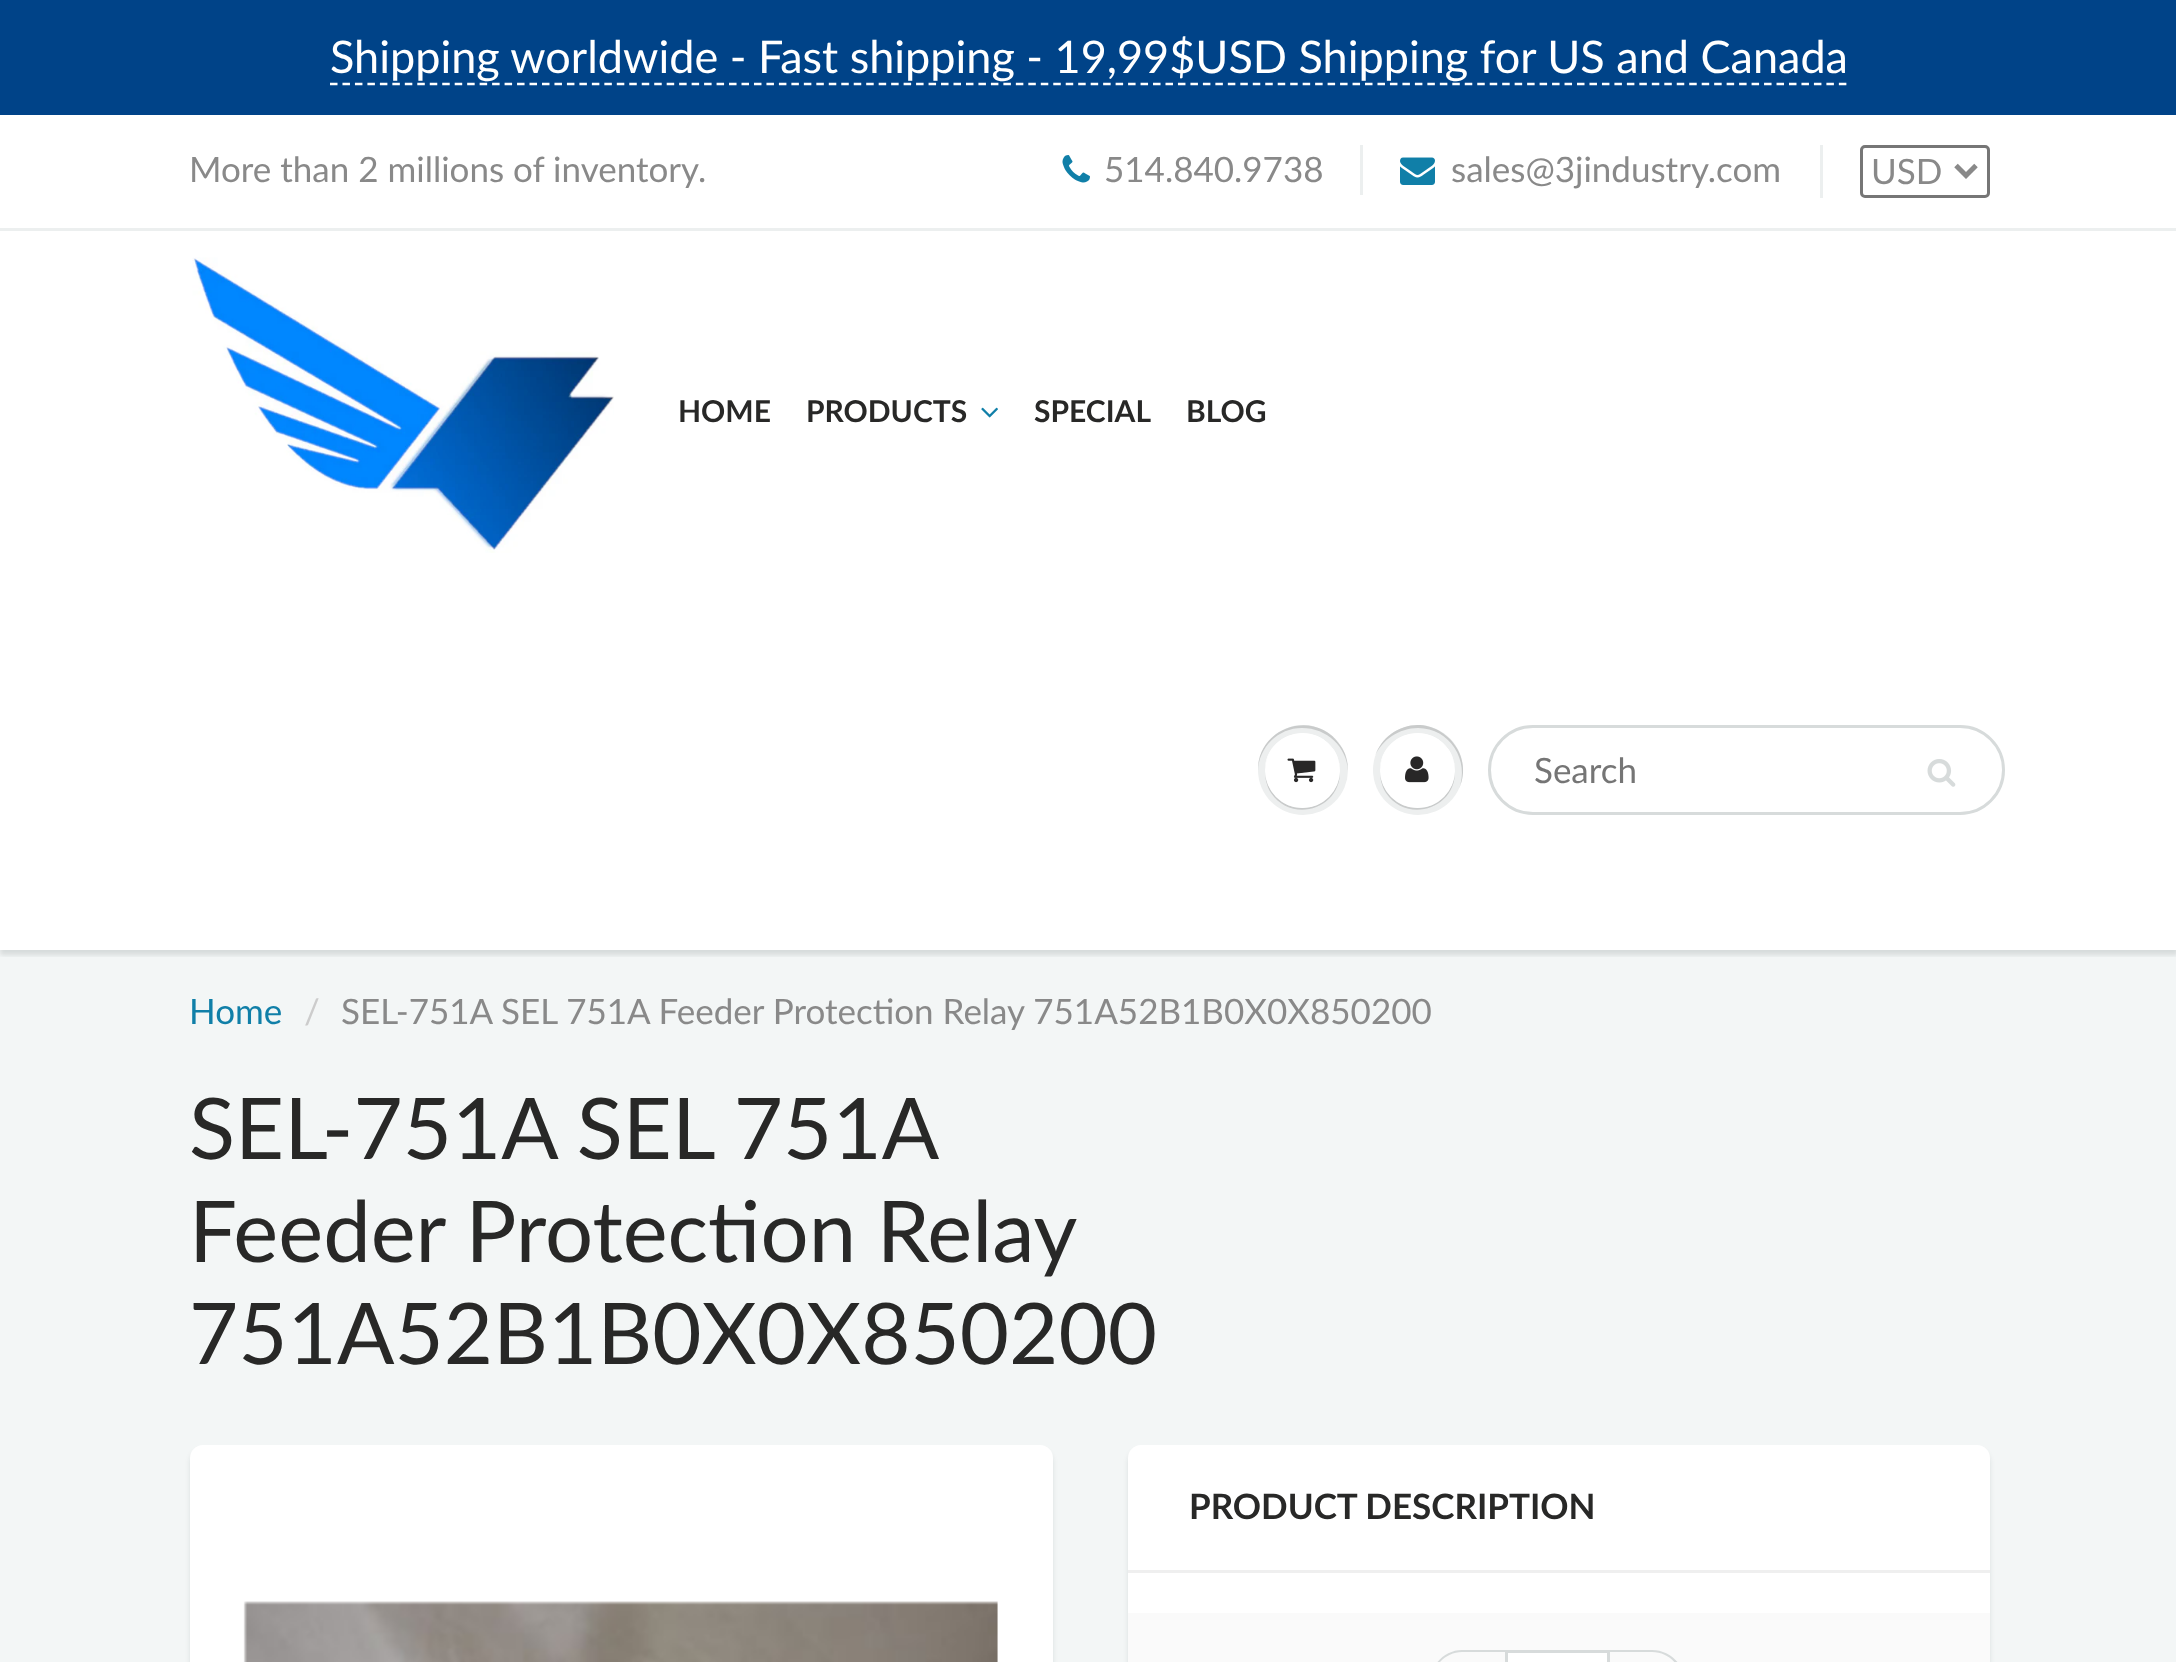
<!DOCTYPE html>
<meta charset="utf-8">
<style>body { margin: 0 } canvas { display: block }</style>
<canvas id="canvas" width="2176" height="1662"></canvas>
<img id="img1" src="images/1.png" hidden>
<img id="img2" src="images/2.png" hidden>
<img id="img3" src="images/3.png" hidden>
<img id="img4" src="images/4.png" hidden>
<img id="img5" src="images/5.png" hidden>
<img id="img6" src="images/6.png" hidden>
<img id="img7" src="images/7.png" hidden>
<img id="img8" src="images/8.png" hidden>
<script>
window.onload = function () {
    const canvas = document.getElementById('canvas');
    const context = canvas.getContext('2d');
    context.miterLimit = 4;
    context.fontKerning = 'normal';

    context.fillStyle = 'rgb(255, 255, 255)';
    context.fillRect(0, 0, 2176, 1662);
    context.fillStyle = 'rgb(0, 67, 136)';
    context.fillRect(0, 0, 2176, 115);
    context.beginPath();
    context.moveTo(330, 84);
    context.lineTo(1847.5, 84);
    context.strokeStyle = 'rgb(255, 255, 255)';
    context.lineWidth = 2.5;
    context.setLineDash([7.5, 4.97]);
    context.stroke();
    context.drawImage(document.getElementById('img1'), 1062, 155, 28, 28);
    context.fillStyle = 'rgb(236, 239, 239)';
    context.fillRect(1360, 145, 3, 50);
    context.drawImage(document.getElementById('img2'), 1400, 157, 35, 28);
    context.fillRect(1820, 145, 3, 53);
    context.beginPath();
    context.roundRect(1861.5, 146.5, 127, 50, 3.5);
    context.strokeStyle = 'rgb(118, 118, 118)';
    context.lineWidth = 3;
    context.setLineDash([]);
    context.stroke();
    context.beginPath();
    context.moveTo(1956, 165.5);
    context.lineTo(1966, 175.5);
    context.lineTo(1976, 165.5);
    context.strokeStyle = 'rgb(137, 137, 137)';
    context.lineWidth = 5;
    context.stroke();
    context.fillStyle = 'rgb(243, 246, 246)';
    context.fillRect(0, 950, 2176, 712);
    context.save();
    context.beginPath();
    context.rect(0, 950, 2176, 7);
    context.clip();
    context.fillStyle = 'rgba(11, 25, 28, 0.12)';
    context.filter = 'blur(2.5px)';
    context.beginPath();
    context.rect(0, 233, 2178, 722);
    context.fill();
    context.filter = 'none';
    context.restore();
    context.fillStyle = 'rgb(236, 239, 239)';
    context.fillRect(0, 228, 2176, 3);
    context.drawImage(document.getElementById('img3'), 192, 257, 422, 296);
    context.drawImage(document.getElementById('img4'), 981, 407, 17, 11);
    context.fillStyle = 'rgb(237, 239, 239)';
    context.beginPath();
    context.arc(1303, 770, 45, 0, 2 * Math.PI);
    context.fill();
    context.fillStyle = 'rgb(201, 203, 203)';
    context.beginPath();
    context.moveTo(1265, 771);
    context.bezierCurveTo(1265, 779, 1267, 787, 1271, 793);
    context.bezierCurveTo(1292, 824, 1341, 809, 1340, 771);
    context.bezierCurveTo(1339, 791, 1323, 808, 1302, 808);
    context.bezierCurveTo(1282, 808, 1266, 791, 1265, 771);
    context.closePath();
    context.fill();
    context.beginPath();
    context.moveTo(1302, 728);
    context.bezierCurveTo(1327, 728, 1347, 747, 1348, 771);
    context.bezierCurveTo(1348, 762, 1346, 753, 1340, 745);
    context.bezierCurveTo(1315, 708, 1257, 727, 1258, 771);
    context.bezierCurveTo(1259, 747, 1278, 728, 1302, 728);
    context.closePath();
    context.fill();
    context.fillStyle = 'rgb(255, 255, 255)';
    context.beginPath();
    context.arc(1302.5, 770.5, 37.5, 0, 2 * Math.PI);
    context.fill();
    context.beginPath();
    context.moveTo(1302, 735);
    context.bezierCurveTo(1323, 735, 1340, 752, 1340, 771);
    context.bezierCurveTo(1340, 764, 1338, 756, 1334, 750);
    context.bezierCurveTo(1313, 719, 1264, 734, 1265, 771);
    context.bezierCurveTo(1265, 752, 1282, 735, 1302, 735);
    context.closePath();
    context.fill();
    context.drawImage(document.getElementById('img5'), 1287, 758, 29, 25);
    context.fillStyle = 'rgb(237, 239, 239)';
    context.beginPath();
    context.arc(1418, 770, 45, 0, 2 * Math.PI);
    context.fill();
    context.fillStyle = 'rgb(201, 203, 203)';
    context.beginPath();
    context.moveTo(1418, 728);
    context.bezierCurveTo(1450, 728, 1470, 761, 1459, 789);
    context.bezierCurveTo(1478, 748, 1429, 706, 1391, 734);
    context.bezierCurveTo(1384, 739, 1378, 747, 1375, 756);
    context.bezierCurveTo(1382, 740, 1399, 728, 1418, 728);
    context.closePath();
    context.fill();
    context.beginPath();
    context.moveTo(1380, 771);
    context.bezierCurveTo(1380, 779, 1382, 787, 1386, 793);
    context.bezierCurveTo(1407, 824, 1456, 809, 1455, 771);
    context.bezierCurveTo(1454, 791, 1438, 808, 1418, 808);
    context.bezierCurveTo(1397, 808, 1381, 791, 1380, 771);
    context.closePath();
    context.fill();
    context.fillStyle = 'rgb(255, 255, 255)';
    context.beginPath();
    context.arc(1417.5, 770.5, 37.5, 0, 2 * Math.PI);
    context.fill();
    context.beginPath();
    context.moveTo(1418, 735);
    context.bezierCurveTo(1438, 735, 1455, 752, 1455, 771);
    context.bezierCurveTo(1455, 764, 1453, 756, 1449, 750);
    context.bezierCurveTo(1428, 719, 1379, 734, 1380, 771);
    context.bezierCurveTo(1380, 752, 1397, 735, 1418, 735);
    context.closePath();
    context.fill();
    context.drawImage(document.getElementById('img6'), 1405, 756, 24, 27);
    context.beginPath();
    context.roundRect(1489.5, 726.5, 514, 87, 43.5);
    context.strokeStyle = 'rgb(215, 219, 219)';
    context.lineWidth = 3;
    context.stroke();
    context.drawImage(document.getElementById('img7'), 1927, 759, 29, 28);
    context.fillStyle = 'rgba(11, 25, 28, 0.1)';
    context.filter = 'blur(2.5px)';
    context.beginPath();
    context.roundRect(190, 1450, 863, 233, 13);
    context.fill();
    context.filter = 'none';
    context.fillStyle = 'rgb(255, 255, 255)';
    context.beginPath();
    context.roundRect(190, 1445, 863, 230, 13);
    context.fill();
    context.drawImage(document.getElementById('img8'), 243, 1601, 755, 61);
    context.fillStyle = 'rgba(11, 25, 28, 0.1)';
    context.filter = 'blur(2.5px)';
    context.beginPath();
    context.roundRect(1128, 1450, 862, 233, 13);
    context.fill();
    context.filter = 'none';
    context.fillStyle = 'rgb(255, 255, 255)';
    context.beginPath();
    context.roundRect(1128, 1445, 862, 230, 13);
    context.fill();
    context.fillStyle = 'rgb(239, 239, 239)';
    context.fillRect(1128, 1570, 862, 3);
    context.fillStyle = 'rgb(250, 250, 250)';
    context.fillRect(1128, 1613, 862, 49);
    context.fillStyle = 'rgb(215, 219, 219)';
    context.beginPath();
    context.moveTo(1462, 1650);
    context.lineTo(1505, 1650);
    context.lineTo(1505, 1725);
    context.lineTo(1462, 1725);
    context.bezierCurveTo(1445, 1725, 1430, 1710, 1430, 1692);
    context.lineTo(1430, 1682);
    context.bezierCurveTo(1430, 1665, 1445, 1650, 1462, 1650);
    context.closePath();
    context.moveTo(1462, 1652);
    context.lineTo(1505, 1652);
    context.lineTo(1505, 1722);
    context.lineTo(1462, 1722);
    context.bezierCurveTo(1446, 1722, 1432, 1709, 1432, 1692);
    context.lineTo(1432, 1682);
    context.bezierCurveTo(1432, 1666, 1446, 1652, 1462, 1652);
    context.closePath();
    context.fill('evenodd');
    context.fillStyle = 'rgb(255, 255, 255)';
    context.beginPath();
    context.rect(1506.5, 1651.5, 102, 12);
    context.fill();
    context.stroke();
    context.fillStyle = 'rgb(215, 219, 219)';
    context.beginPath();
    context.moveTo(1610, 1650);
    context.lineTo(1652, 1650);
    context.bezierCurveTo(1670, 1650, 1685, 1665, 1685, 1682);
    context.lineTo(1685, 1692);
    context.bezierCurveTo(1685, 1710, 1670, 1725, 1652, 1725);
    context.lineTo(1610, 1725);
    context.closePath();
    context.moveTo(1610, 1652);
    context.lineTo(1652, 1652);
    context.bezierCurveTo(1669, 1652, 1682, 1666, 1682, 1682);
    context.lineTo(1682, 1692);
    context.bezierCurveTo(1682, 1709, 1669, 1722, 1652, 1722);
    context.lineTo(1610, 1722);
    context.closePath();
    context.fill('evenodd');
    context.font = '45px Lato';
    context.fillStyle = 'rgb(255, 255, 255)';
    context.fillText('Shipping worldwide - Fast shipping - 19,99$USD Shipping for US and Canada', 330, 73);
    context.font = '35px Lato';
    context.fillStyle = 'rgb(137, 137, 137)';
    context.fillText('More than 2 millions of inventory.', 189, 182);
    context.fillText('514.840.9738', 1104, 182);
    context.fillText('sales@3jindustry.com', 1451, 182);
    context.fillText('USD', 1871, 184);
    context.font = 'bold 30px Lato';
    context.fillStyle = 'rgb(40, 40, 39)';
    context.fillText('HOME', 678, 422);
    context.fillText('PRODUCTS', 806, 422);
    context.fillText('SPECIAL', 1034, 422);
    context.fillText('BLOG', 1186, 422);
    context.font = '35px Lato';
    context.fillStyle = 'rgb(117, 117, 117)';
    context.fillText('Search', 1534, 783);
    context.fillStyle = 'rgb(16, 127, 168)';
    context.fillText('Home', 189, 1024);
    context.fillStyle = 'rgb(204, 204, 204)';
    context.fillText('/', 304, 1024);
    context.fillStyle = 'rgb(137, 137, 137)';
    context.fillText('SEL-751A SEL 751A Feeder Protection Relay 751A52B1B0X0X850200', 341, 1024);
    context.wordSpacing = '-1px';
    context.font = '85px Lato';
    context.fillStyle = 'rgb(40, 40, 39)';
    context.fillText('SEL-751A SEL 751A', 189, 1159);
    context.fillText('Feeder Protection Relay', 189, 1262);
    context.wordSpacing = '0px';
    context.fillText('751A52B1B0X0X850200', 189, 1364);
    context.font = 'bold 35px Lato';
    context.fillText('PRODUCT DESCRIPTION', 1189, 1519);
};
</script>
